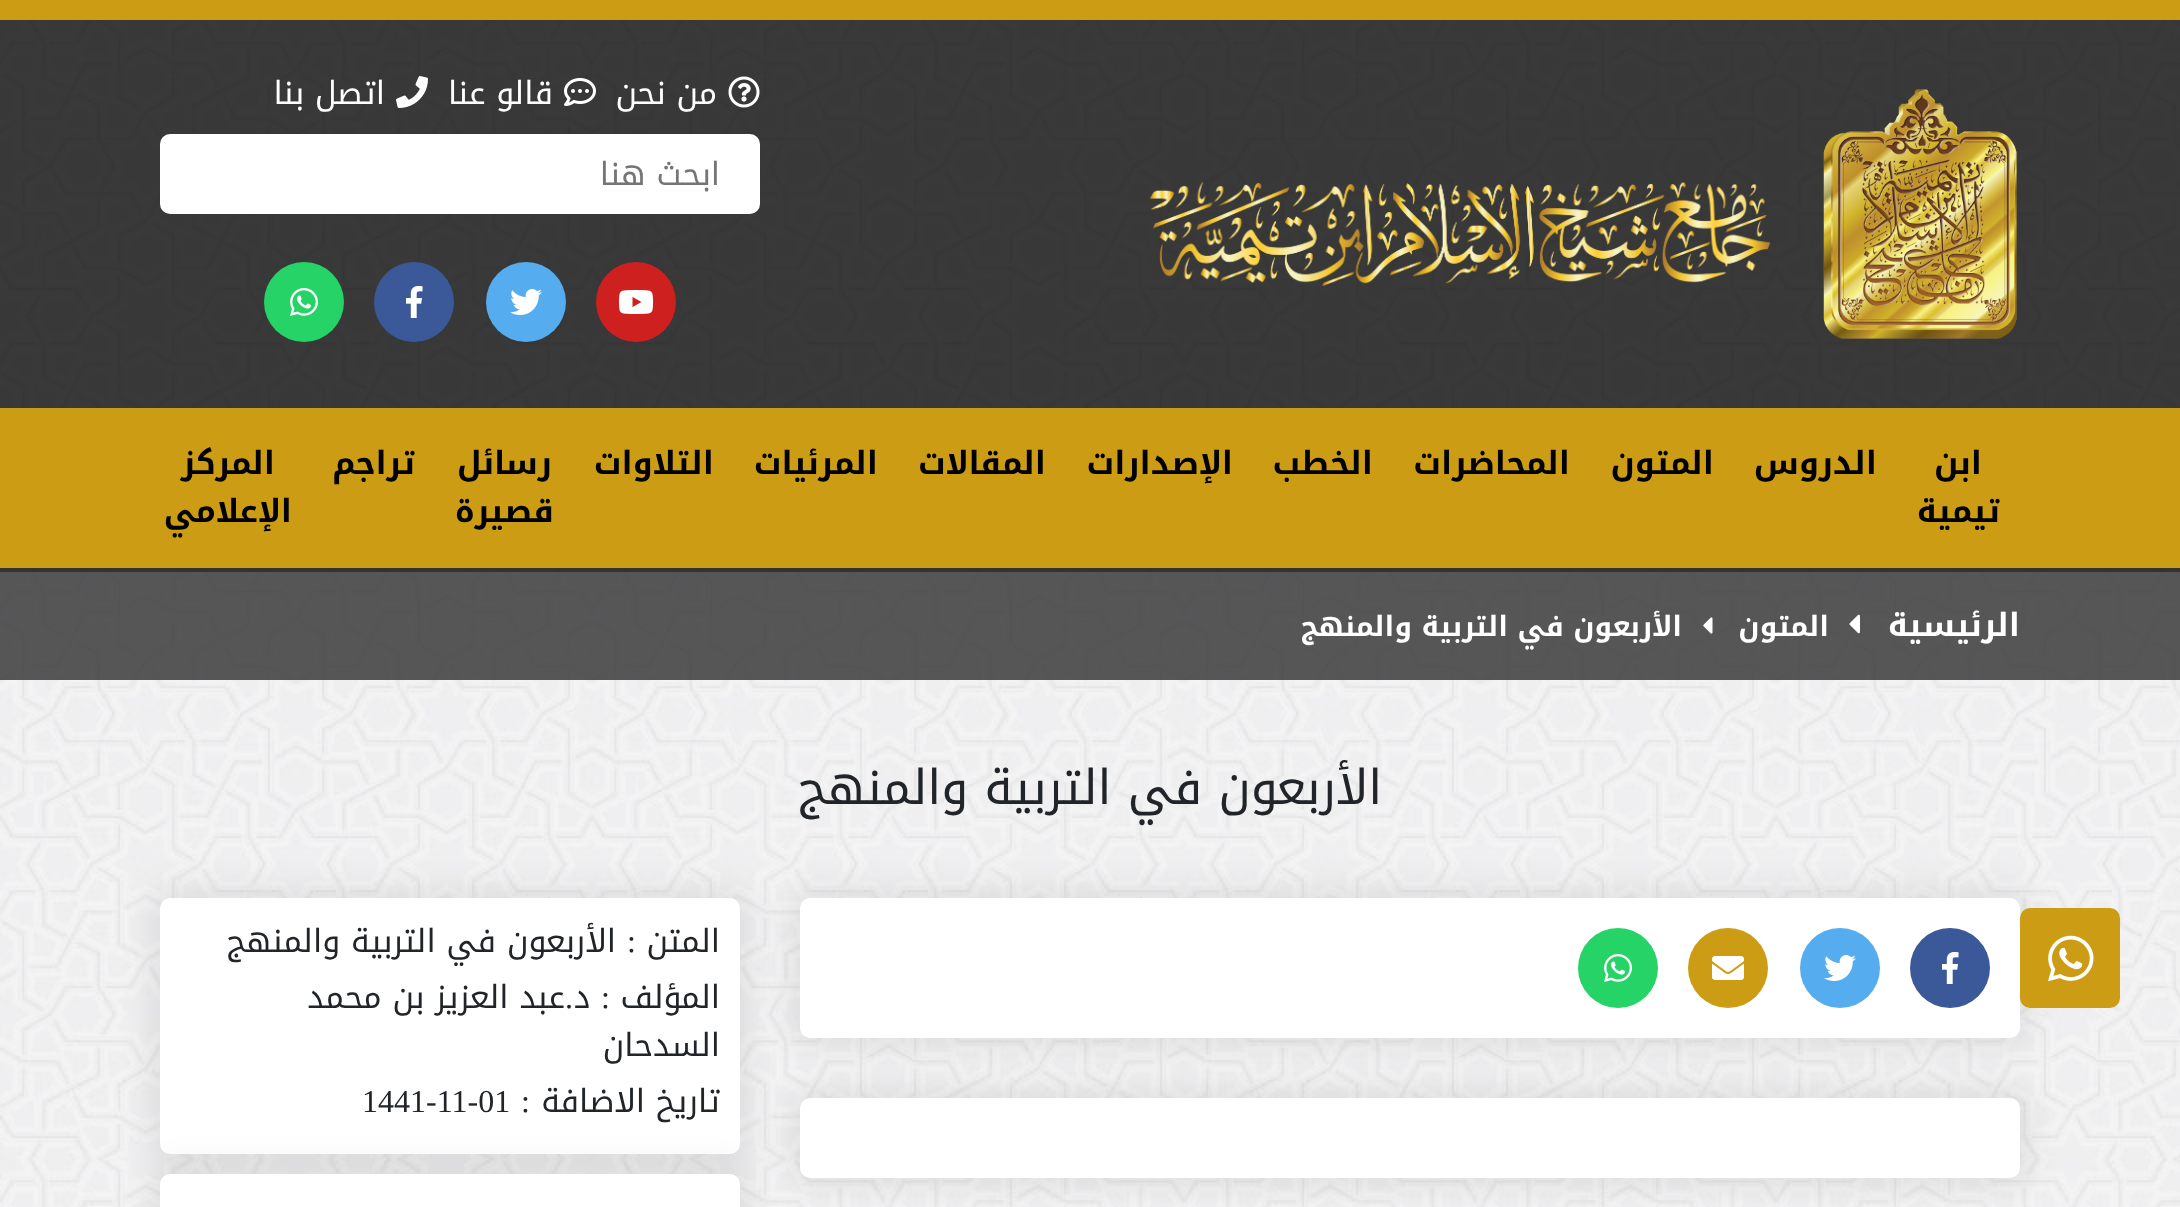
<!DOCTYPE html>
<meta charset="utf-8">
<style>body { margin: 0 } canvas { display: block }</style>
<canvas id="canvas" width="2180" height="1207"></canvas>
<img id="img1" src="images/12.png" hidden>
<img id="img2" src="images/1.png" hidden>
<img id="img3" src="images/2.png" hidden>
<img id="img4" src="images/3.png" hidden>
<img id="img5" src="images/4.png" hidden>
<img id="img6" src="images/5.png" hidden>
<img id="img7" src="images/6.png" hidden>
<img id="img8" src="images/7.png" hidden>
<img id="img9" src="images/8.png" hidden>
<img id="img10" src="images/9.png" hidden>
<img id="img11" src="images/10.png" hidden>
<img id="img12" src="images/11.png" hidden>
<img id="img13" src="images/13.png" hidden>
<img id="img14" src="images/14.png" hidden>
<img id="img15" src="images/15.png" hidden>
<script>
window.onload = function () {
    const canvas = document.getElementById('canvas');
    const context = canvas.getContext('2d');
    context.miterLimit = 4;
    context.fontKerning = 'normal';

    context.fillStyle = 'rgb(255, 255, 255)';
    context.fillRect(0, 0, 2180, 1207);
    context.drawImage(document.getElementById('img1'), 0, 572, 2180, 635);
    context.fillStyle = 'rgba(0, 0, 0, 0.07)';
    context.filter = 'blur(15px)';
    context.beginPath();
    context.roundRect(790, 888, 1240, 160, 20);
    context.fill();
    context.filter = 'none';
    context.fillStyle = 'rgb(204, 156, 21)';
    context.beginPath();
    context.roundRect(2020, 908, 100, 100, 10);
    context.fill();
    context.drawImage(document.getElementById('img2'), 2048, 935, 46, 47);
    context.drawImage(document.getElementById('img3'), 0, 20, 2180, 388);
    context.fillRect(0, 0, 2180, 20);
    context.drawImage(document.getElementById('img4'), 1823, 89, 194, 250);
    context.drawImage(document.getElementById('img5'), 1150, 182, 620, 104);
    context.drawImage(document.getElementById('img6'), 728, 76, 32, 32);
    context.drawImage(document.getElementById('img7'), 564, 78, 32, 28);
    context.drawImage(document.getElementById('img8'), 396, 76, 32, 32);
    context.fillStyle = 'rgb(255, 255, 255)';
    context.beginPath();
    context.roundRect(160, 134, 600, 80, 10);
    context.fill();
    context.fillStyle = 'rgb(205, 32, 31)';
    context.beginPath();
    context.arc(636, 302, 40, 0, 2 * Math.PI);
    context.fill();
    context.drawImage(document.getElementById('img9'), 618, 290, 36, 24);
    context.fillStyle = 'rgb(85, 172, 238)';
    context.beginPath();
    context.arc(526, 302, 40, 0, 2 * Math.PI);
    context.fill();
    context.drawImage(document.getElementById('img10'), 510, 289, 32, 26);
    context.fillStyle = 'rgb(59, 89, 153)';
    context.beginPath();
    context.arc(414, 302, 40, 0, 2 * Math.PI);
    context.fill();
    context.drawImage(document.getElementById('img11'), 406, 286, 17, 32);
    context.fillStyle = 'rgb(37, 211, 102)';
    context.beginPath();
    context.arc(304, 302, 40, 0, 2 * Math.PI);
    context.fill();
    context.drawImage(document.getElementById('img12'), 290, 288, 28, 28);
    context.fillStyle = 'rgb(204, 156, 21)';
    context.fillRect(0, 408, 2180, 160);
    context.fillStyle = 'rgba(56, 56, 57, 0.84)';
    context.fillRect(0, 572, 2180, 108);
    context.fillStyle = 'rgb(51, 51, 51)';
    context.fillRect(0, 568, 2180, 4);
    context.drawImage(document.getElementById('img13'), 1849, 614, 11, 20);
    context.drawImage(document.getElementById('img14'), 1703, 617, 10, 17);
    context.fillStyle = 'rgb(255, 255, 255)';
    context.beginPath();
    context.roundRect(800, 898, 1220, 140, 10);
    context.fill();
    context.fillStyle = 'rgb(59, 89, 153)';
    context.beginPath();
    context.arc(1950, 968, 40, 0, 2 * Math.PI);
    context.fill();
    context.drawImage(document.getElementById('img11'), 1942, 952, 17, 32);
    context.fillStyle = 'rgb(85, 172, 238)';
    context.beginPath();
    context.arc(1840, 968, 40, 0, 2 * Math.PI);
    context.fill();
    context.drawImage(document.getElementById('img10'), 1824, 955, 32, 26);
    context.fillStyle = 'rgb(204, 156, 21)';
    context.beginPath();
    context.arc(1728, 968, 40, 0, 2 * Math.PI);
    context.fill();
    context.drawImage(document.getElementById('img15'), 1712, 956, 32, 24);
    context.fillStyle = 'rgb(37, 211, 102)';
    context.beginPath();
    context.arc(1618, 968, 40, 0, 2 * Math.PI);
    context.fill();
    context.drawImage(document.getElementById('img12'), 1604, 954, 28, 28);
    context.fillStyle = 'rgba(0, 0, 0, 0.07)';
    context.filter = 'blur(15px)';
    context.beginPath();
    context.roundRect(790, 1088, 1240, 100, 20);
    context.fill();
    context.filter = 'none';
    context.fillStyle = 'rgb(255, 255, 255)';
    context.beginPath();
    context.roundRect(800, 1098, 1220, 80, 10);
    context.fill();
    context.fillStyle = 'rgba(0, 0, 0, 0.07)';
    context.filter = 'blur(15px)';
    context.beginPath();
    context.roundRect(150, 888, 600, 276, 20);
    context.fill();
    context.filter = 'none';
    context.fillStyle = 'rgb(255, 255, 255)';
    context.beginPath();
    context.roundRect(160, 898, 580, 256, 10);
    context.fill();
    context.fillStyle = 'rgba(0, 0, 0, 0.07)';
    context.filter = 'blur(15px)';
    context.beginPath();
    context.roundRect(150, 1164, 600, 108, 20);
    context.fill();
    context.filter = 'none';
    context.fillStyle = 'rgb(255, 255, 255)';
    context.beginPath();
    context.roundRect(160, 1174, 580, 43, 10);
    context.fill();
    context.direction = 'rtl';
    context.font = '32px Noto Kufi Arabic';
    context.fillText('من نحن', 717, 104);
    context.fillText('قالو عنا', 553, 104);
    context.fillText('اتصل بنا', 385, 104);
    context.fillStyle = 'rgb(117, 117, 117)';
    context.fillText('ابحث هنا', 720, 185);
    context.font = 'bold 32px Noto Kufi Arabic';
    context.fillStyle = 'rgb(0, 0, 0)';
    context.fillText('ابن', 1982, 474);
    context.fillText('تيمية', 2000, 522);
    context.fillText('الدروس', 1877, 474);
    context.fillText('المتون', 1714, 474);
    context.fillText('المحاضرات', 1570, 474);
    context.fillText('الخطب', 1373, 474);
    context.fillText('الإصدارات', 1233, 474);
    context.fillText('المقالات', 1046, 474);
    context.fillText('المرئيات', 878, 474);
    context.fillText('التلاوات', 714, 474);
    context.fillText('رسائل', 552, 474);
    context.fillText('قصيرة', 554, 522);
    context.fillText('تراجم', 415, 474);
    context.fillText('المركز', 275, 474);
    context.fillText('الإعلامي', 292, 522);
    context.fillStyle = 'rgb(255, 255, 255)';
    context.fillText('الرئيسية', 2020, 636);
    context.font = 'bold 28px Noto Kufi Arabic';
    context.fillText('المتون', 1829, 636);
    context.fillText('الأربعون في التربية والمنهج', 1682, 636);
    context.font = '48px Noto Kufi Arabic';
    context.fillStyle = 'rgb(33, 37, 41)';
    context.fillText('الأربعون في التربية والمنهج', 1382, 804);
    context.font = '32px Noto Kufi Arabic';
    context.fillText('المتن', 720, 952);
    context.font = '32px Liberation Serif';
    context.fillText(':', 636, 952);
    context.font = '32px Noto Kufi Arabic';
    context.fillText('الأربعون في التربية والمنهج', 616, 952);
    context.fillText('المؤلف', 720, 1008);
    context.font = '32px Liberation Serif';
    context.fillText(':', 610, 1008);
    context.font = '32px Noto Kufi Arabic';
    context.fillText('د', 590, 1008);
    context.font = '32px Liberation Serif';
    context.fillText('.', 573, 1008);
    context.font = '32px Noto Kufi Arabic';
    context.fillText('عبد العزيز بن محمد', 565, 1008);
    context.fillText('السدحان', 720, 1056);
    context.fillText('تاريخ الاضافة', 720, 1112);
    context.font = '32px Liberation Serif';
    context.fillText(':', 530, 1112);
    context.direction = 'ltr';
    context.fillText('1441-11-01', 362, 1112);
};
</script>
